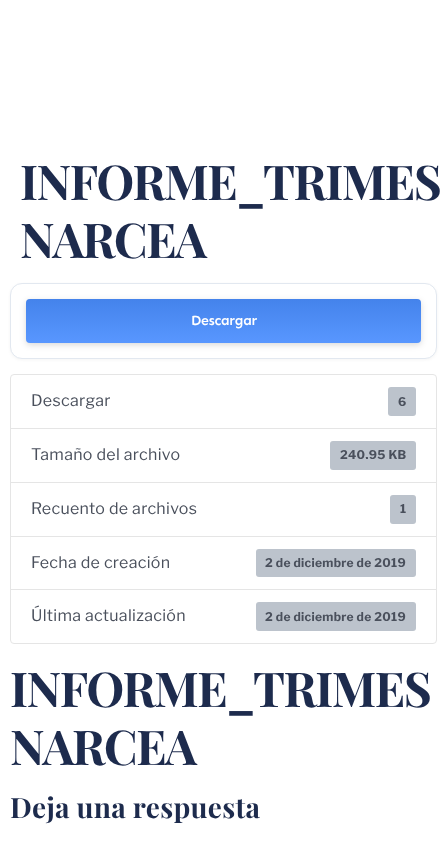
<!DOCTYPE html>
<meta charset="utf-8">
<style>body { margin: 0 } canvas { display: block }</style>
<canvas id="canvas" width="447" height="850"></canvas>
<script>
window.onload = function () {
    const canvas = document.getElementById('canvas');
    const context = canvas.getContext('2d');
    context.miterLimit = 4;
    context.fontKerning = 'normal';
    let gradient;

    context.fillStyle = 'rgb(255, 255, 255)';
    context.fillRect(0, 0, 447, 850);
    context.fillStyle = 'rgba(0, 0, 0, 0.04)';
    context.filter = 'blur(1.5px)';
    context.beginPath();
    context.roundRect(10, 284, 427, 76, 12);
    context.fill();
    context.filter = 'none';
    context.fillStyle = 'rgb(255, 255, 255)';
    context.beginPath();
    context.roundRect(10.5, 283.5, 426, 75, 11.5);
    context.fill();
    context.strokeStyle = 'rgb(226, 232, 240)';
    context.stroke();
    context.fillStyle = 'rgba(0, 0, 0, 0.15)';
    context.filter = 'blur(3px)';
    context.beginPath();
    context.roundRect(26, 301, 395, 44, 4);
    context.fill();
    context.filter = 'none';
    context.fillStyle = 'rgb(74, 142, 255)';
    context.beginPath();
    context.roundRect(26, 299, 395, 44, 4);
    context.fill();
    gradient = context.createLinearGradient(224, 299, 224, 343);
    gradient.addColorStop(0, 'rgba(0, 0, 0, 0.08)');
    gradient.addColorStop(1, 'rgba(255, 255, 255, 0.08)');
    context.fillStyle = gradient;
    context.beginPath();
    context.roundRect(26, 299, 395, 44, 4);
    context.fill();
    context.beginPath();
    context.roundRect(10.5, 374.5, 426, 54, [3.5, 3.5, 0, 0]);
    context.strokeStyle = 'rgb(229, 229, 229)';
    context.stroke();
    context.fillStyle = 'rgb(188, 195, 204)';
    context.beginPath();
    context.roundRect(388, 387, 28, 29, 3);
    context.fill();
    context.strokeRect(10.5, 428.5, 426, 54);
    context.beginPath();
    context.roundRect(330, 441, 86, 29, 3);
    context.fill();
    context.strokeRect(10.5, 482.5, 426, 54);
    context.beginPath();
    context.roundRect(390, 495, 26, 29, 3);
    context.fill();
    context.strokeRect(10.5, 536.5, 426, 53);
    context.beginPath();
    context.roundRect(256, 549, 160, 28, 3);
    context.fill();
    context.fillStyle = 'rgb(255, 255, 255)';
    context.beginPath();
    context.roundRect(10.5, 589.5, 426, 54, [0, 0, 3.5, 3.5]);
    context.fill();
    context.stroke();
    context.fillStyle = 'rgb(188, 195, 204)';
    context.beginPath();
    context.roundRect(256, 602, 160, 29, 3);
    context.fill();
    context.letterSpacing = '-1.5px';
    context.font = 'bold 48px Playfair Display';
    context.fillStyle = 'rgb(29, 43, 77)';
    context.fillText('INFORME_TRIMES', 20, 200);
    context.fillText('NARCEA', 20, 258);
    context.letterSpacing = '-0.25px';
    context.font = '600 14px Sen';
    context.fillStyle = 'rgb(255, 255, 255)';
    context.fillText('Descargar', 191, 325);
    context.letterSpacing = '0.3px';
    context.font = '16px Libre Franklin';
    context.fillStyle = 'rgb(74, 80, 92)';
    context.fillText('Descargar', 31, 406);
    context.font = 'bold 12px Libre Franklin';
    context.fillText('6', 398, 406);
    context.font = '16px Libre Franklin';
    context.fillText('Tamaño del archivo', 31, 460);
    context.font = 'bold 12px Libre Franklin';
    context.fillText('240.95 KB', 340, 459);
    context.font = '16px Libre Franklin';
    context.fillText('Recuento de archivos', 31, 514);
    context.font = 'bold 12px Libre Franklin';
    context.fillText('1', 400, 513);
    context.font = '16px Libre Franklin';
    context.fillText('Fecha de creación', 31, 568);
    context.font = 'bold 12px Libre Franklin';
    context.fillText('2 de diciembre de 2019', 265, 567);
    context.font = '16px Libre Franklin';
    context.fillText('Última actualización', 31, 621);
    context.font = 'bold 12px Libre Franklin';
    context.fillText('2 de diciembre de 2019', 265, 621);
    context.letterSpacing = '-1.5px';
    context.font = 'bold 48px Playfair Display';
    context.fillStyle = 'rgb(29, 43, 77)';
    context.fillText('INFORME_TRIMES', 10, 707);
    context.fillText('NARCEA', 10, 765);
    context.letterSpacing = '0.3px';
    context.font = 'bold 28px Playfair Display';
    context.fillText('Deja una respuesta', 10, 818);
};
</script>
